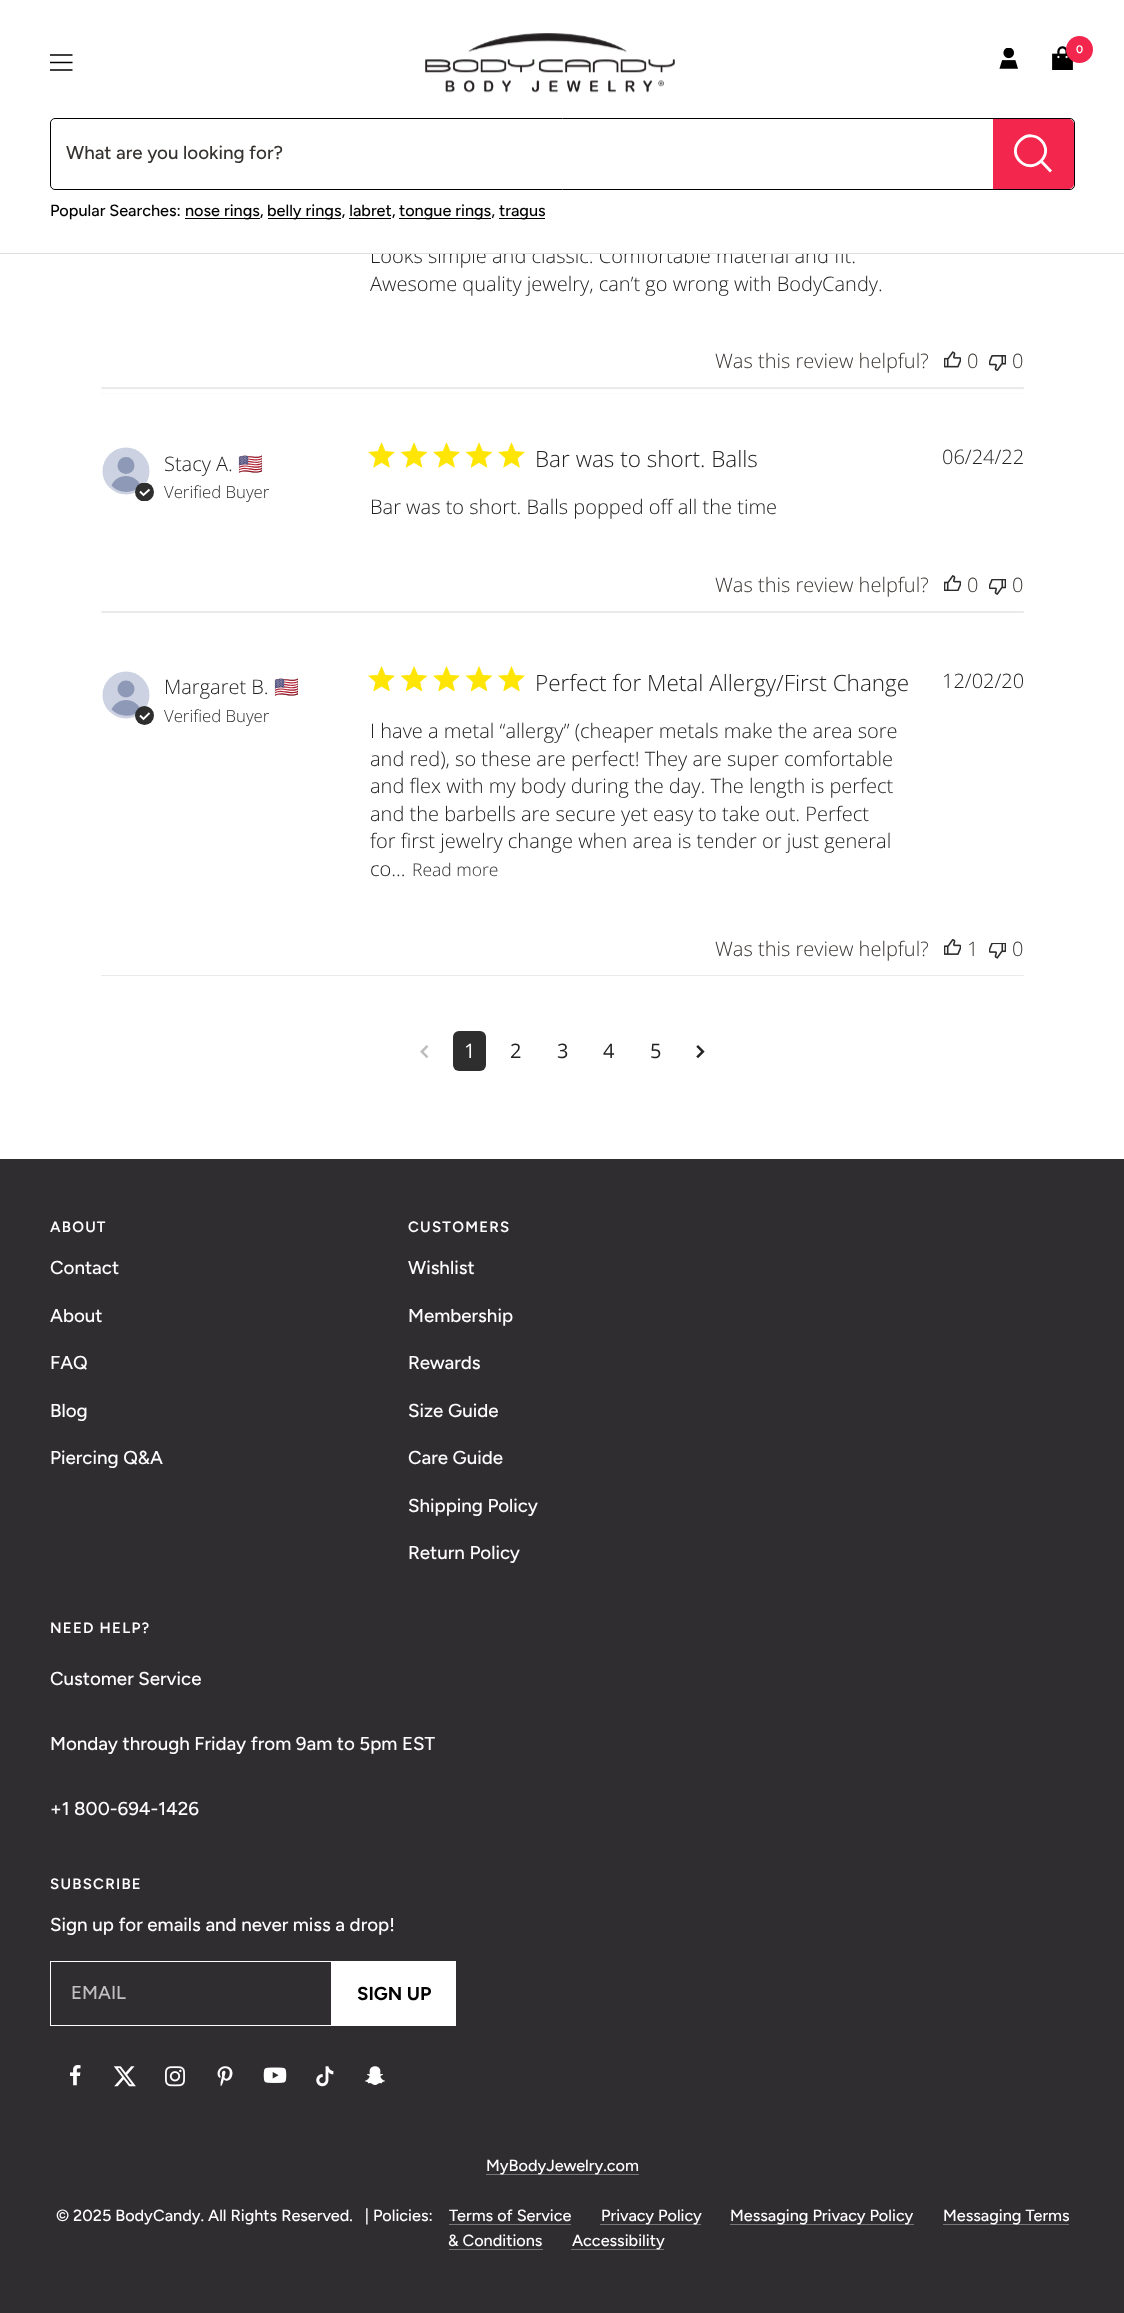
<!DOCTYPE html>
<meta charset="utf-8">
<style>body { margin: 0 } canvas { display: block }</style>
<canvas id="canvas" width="1124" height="2313"></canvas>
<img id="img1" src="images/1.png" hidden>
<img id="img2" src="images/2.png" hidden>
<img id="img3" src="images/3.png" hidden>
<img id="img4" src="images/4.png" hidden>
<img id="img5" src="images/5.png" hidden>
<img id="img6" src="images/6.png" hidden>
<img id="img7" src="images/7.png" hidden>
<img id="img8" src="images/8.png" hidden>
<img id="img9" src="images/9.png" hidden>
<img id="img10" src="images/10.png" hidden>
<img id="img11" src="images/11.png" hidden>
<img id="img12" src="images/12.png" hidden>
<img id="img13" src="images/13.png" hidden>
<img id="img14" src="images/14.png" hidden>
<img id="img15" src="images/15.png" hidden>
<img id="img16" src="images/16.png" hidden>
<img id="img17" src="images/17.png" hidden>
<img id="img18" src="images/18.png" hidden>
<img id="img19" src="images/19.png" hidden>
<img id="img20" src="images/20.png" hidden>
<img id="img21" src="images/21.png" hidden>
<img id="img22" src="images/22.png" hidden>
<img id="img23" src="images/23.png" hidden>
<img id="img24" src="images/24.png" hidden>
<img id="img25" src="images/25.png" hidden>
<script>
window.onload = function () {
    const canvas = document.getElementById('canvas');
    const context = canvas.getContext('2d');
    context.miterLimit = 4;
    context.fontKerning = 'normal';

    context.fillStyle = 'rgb(255, 255, 255)';
    context.fillRect(0, 0, 1124, 2313);
    context.drawImage(document.getElementById('img1'), 425, 33, 250, 60);
    context.drawImage(document.getElementById('img2'), 999, 48, 19, 21);
    context.drawImage(document.getElementById('img3'), 1052, 46, 21, 24);
    context.fillStyle = 'rgb(243, 38, 77)';
    context.beginPath();
    context.arc(1079.5, 49.5, 13.5, 0, 2 * Math.PI);
    context.fill();
    context.beginPath();
    context.moveTo(50, 55);
    context.lineTo(72.5, 55);
    context.moveTo(50, 70);
    context.lineTo(72.5, 70);
    context.closePath();
    context.moveTo(50, 62.5);
    context.lineTo(72.5, 62.5);
    context.closePath();
    context.strokeStyle = 'rgb(0, 0, 0)';
    context.lineWidth = 1.6;
    context.stroke();
    context.beginPath();
    context.roundRect(50.5, 118.5, 1024, 71, 4.5);
    context.lineWidth = 1;
    context.stroke();
    context.beginPath();
    context.roundRect(993, 119, 81, 70, [0, 5, 5, 0]);
    context.fill();
    context.beginPath();
    context.moveTo(1041, 161);
    context.bezierCurveTo(1055, 147, 1034, 126.5, 1020, 140.5);
    context.bezierCurveTo(1006, 154.5, 1027, 175, 1041, 161);
    context.closePath();
    context.moveTo(1041, 161);
    context.lineTo(1051, 171.5);
    context.strokeStyle = 'rgb(255, 255, 255)';
    context.lineWidth = 2.9;
    context.stroke();
    context.fillStyle = 'rgb(0, 0, 0)';
    context.fillRect(185, 218, 75, 1);
    context.fillRect(268, 218, 73, 1);
    context.fillRect(399, 218, 92, 1);
    context.fillRect(499, 218, 46, 1);
    context.fillRect(349, 218, 42, 1);
    context.drawImage(document.getElementById('img4'), 944, 351, 17, 17);
    context.drawImage(document.getElementById('img5'), 989, 355, 17, 16);
    context.drawImage(document.getElementById('img6'), 101, 387, 923, 7);
    context.fillStyle = 'rgb(204, 210, 225)';
    context.beginPath();
    context.arc(126, 471, 23.5, 0, 2 * Math.PI);
    context.fill();
    context.fillStyle = 'rgb(141, 153, 182)';
    context.beginPath();
    context.arc(126, 465.5, 8.5, 0, 2 * Math.PI);
    context.fill();
    context.beginPath();
    context.moveTo(126, 476);
    context.bezierCurveTo(132.5, 476, 138.5, 480, 141, 486);
    context.bezierCurveTo(132.5, 494, 119, 494, 111.5, 485.5);
    context.bezierCurveTo(113.5, 480, 119.5, 476, 126, 476);
    context.closePath();
    context.fill();
    context.save();
    context.beginPath();
    context.rect(135, 483, 19, 18);
    context.clip();
    context.fillStyle = 'rgb(47, 46, 46)';
    context.beginPath();
    context.arc(144.5, 492, 9.5, 0, 2 * Math.PI);
    context.fill();
    context.restore();
    context.beginPath();
    context.moveTo(140, 491.5);
    context.lineTo(143.5, 495);
    context.lineTo(149.5, 489.5);
    context.lineWidth = 1.9;
    context.stroke();
    context.drawImage(document.getElementById('img7'), 368, 442, 27, 26);
    context.drawImage(document.getElementById('img8'), 400, 442, 28, 26);
    context.drawImage(document.getElementById('img7'), 433, 442, 27, 26);
    context.drawImage(document.getElementById('img8'), 465, 442, 28, 26);
    context.drawImage(document.getElementById('img7'), 498, 442, 27, 26);
    context.drawImage(document.getElementById('img9'), 944, 575, 17, 16);
    context.drawImage(document.getElementById('img10'), 989, 579, 17, 16);
    context.drawImage(document.getElementById('img11'), 101, 611, 923, 2);
    context.fillStyle = 'rgb(204, 210, 225)';
    context.beginPath();
    context.arc(126, 695, 23.5, 0, 2 * Math.PI);
    context.fill();
    context.fillStyle = 'rgb(141, 153, 182)';
    context.beginPath();
    context.arc(126, 689, 8.5, 0, 2 * Math.PI);
    context.fill();
    context.beginPath();
    context.moveTo(126, 700);
    context.bezierCurveTo(132.5, 700, 138.5, 704, 141, 710);
    context.bezierCurveTo(132.5, 718, 119.5, 717.5, 111.5, 709.5);
    context.bezierCurveTo(114, 704, 119.5, 700, 126, 700);
    context.closePath();
    context.fill();
    context.fillStyle = 'rgb(47, 46, 46)';
    context.beginPath();
    context.arc(144.5, 715.5, 9.5, 0, 2 * Math.PI);
    context.fill();
    context.beginPath();
    context.moveTo(140, 715.5);
    context.lineTo(143.5, 719);
    context.lineTo(149.5, 713);
    context.stroke();
    context.drawImage(document.getElementById('img12'), 368, 666, 27, 25);
    context.drawImage(document.getElementById('img13'), 400, 666, 28, 25);
    context.drawImage(document.getElementById('img12'), 433, 666, 27, 25);
    context.drawImage(document.getElementById('img13'), 465, 666, 28, 25);
    context.drawImage(document.getElementById('img12'), 498, 666, 27, 25);
    context.drawImage(document.getElementById('img14'), 944, 939, 17, 16);
    context.drawImage(document.getElementById('img15'), 989, 943, 17, 16);
    context.drawImage(document.getElementById('img16'), 101, 975, 923, 1);
    context.drawImage(document.getElementById('img17'), 420, 1045, 9, 13);
    context.beginPath();
    context.roundRect(453, 1031, 33, 40, 6);
    context.fill();
    context.drawImage(document.getElementById('img18'), 696, 1045, 9, 14);
    context.fillStyle = 'rgb(47, 45, 48)';
    context.fillRect(0, 1159, 1124, 1154);
    context.lineWidth = 1;
    context.strokeRect(50.5, 1961.5, 405, 64);
    context.fillStyle = 'rgb(255, 255, 255)';
    context.fillRect(331, 1962, 124, 63);
    context.drawImage(document.getElementById('img19'), 70, 2065, 11, 21);
    context.drawImage(document.getElementById('img20'), 113, 2066, 23, 21);
    context.drawImage(document.getElementById('img21'), 165, 2066, 20, 21);
    context.drawImage(document.getElementById('img22'), 217, 2066, 16, 21);
    context.drawImage(document.getElementById('img23'), 263, 2067, 24, 16);
    context.drawImage(document.getElementById('img24'), 316, 2066, 18, 21);
    context.drawImage(document.getElementById('img25'), 365, 2066, 20, 19);
    context.fillStyle = 'rgb(120, 119, 120)';
    context.fillRect(486, 2174, 153, 1);
    context.fillRect(449, 2224, 122, 1);
    context.fillRect(600, 2224, 101, 1);
    context.fillRect(730, 2224, 184, 1);
    context.fillRect(943, 2224, 126, 1);
    context.fillRect(449, 2249, 94, 1);
    context.fillRect(571, 2249, 93, 1);
    context.font = '600 11px Figtree';
    context.fillStyle = 'rgb(255, 255, 255)';
    context.fillText('0', 1076, 53);
    context.font = '500 18.75px Figtree';
    context.fillStyle = 'rgb(55, 51, 48)';
    context.fillText('What are you looking for?', 66, 159);
    context.font = '500 16.25px Figtree';
    context.fillStyle = 'rgb(0, 0, 0)';
    context.fillText('Popular Searches:', 50, 216);
    context.fillText('nose rings,', 185, 216);
    context.fillText('belly rings, labret,', 267, 216);
    context.fillText('tongue rings,', 399, 216);
    context.fillText('tragus', 499, 216);
    context.font = '300 20px Open Sans';
    context.fillStyle = 'rgb(34, 34, 34)';
    context.fillText('Looks simple and classic. Comfortable material and fit.', 370, 263);
    context.fillStyle = 'rgb(255, 255, 255)';
    context.fillRect(372, 247, 479, 6);
    context.fillStyle = 'rgb(221, 221, 221)';
    context.fillRect(0, 253, 1124, 1);
    context.fillStyle = 'rgb(34, 34, 34)';
    context.fillText('Awesome quality jewelry, can’t go wrong with BodyCandy.', 370, 291);
    context.fillStyle = 'rgb(55, 51, 48)';
    context.fillText('Was this review helpful?', 715, 368);
    context.fillText('0', 967, 368);
    context.fillText('0', 1012, 368);
    context.fillStyle = 'rgb(34, 34, 34)';
    context.fillText('Stacy A.', 164, 471);
    context.font = '20px Noto Color Emoji';
    context.fillText('🇺🇸', 238, 471);
    context.font = '300 16.75px Open Sans';
    context.fillStyle = 'rgb(47, 46, 46)';
    context.fillText('Verified Buyer', 164, 498);
    context.font = '300 22.5px Open Sans';
    context.fillStyle = 'rgb(34, 34, 34)';
    context.fillText('Bar was to short. Balls', 535, 467);
    context.font = '300 20px Open Sans';
    context.fillText('Bar was to short. Balls popped off all the time', 370, 514);
    context.fillText('06/24/22', 942, 464);
    context.fillStyle = 'rgb(55, 51, 48)';
    context.fillText('Was this review helpful?', 715, 592);
    context.fillText('0', 967, 592);
    context.fillText('0', 1012, 592);
    context.fillStyle = 'rgb(34, 34, 34)';
    context.fillText('Margaret B.', 164, 694);
    context.font = '20px Noto Color Emoji';
    context.fillText('🇺🇸', 274, 694);
    context.font = '300 16.75px Open Sans';
    context.fillStyle = 'rgb(47, 46, 46)';
    context.fillText('Verified Buyer', 164, 722);
    context.font = '300 22.5px Open Sans';
    context.fillStyle = 'rgb(34, 34, 34)';
    context.fillText('Perfect for Metal Allergy/First Change', 535, 691);
    context.font = '300 20px Open Sans';
    context.fillText('I have a metal “allergy” (cheaper metals make the area sore', 370, 738);
    context.fillText('and red), so these are perfect! They are super comfortable', 370, 766);
    context.fillText('and flex with my body during the day. The length is perfect', 370, 793);
    context.fillText('and the barbells are secure yet easy to take out. Perfect', 370, 821);
    context.fillText('for first jewelry change when area is tender or just general', 370, 848);
    context.fillText('co...', 370, 876);
    context.font = '300 17.5px Open Sans';
    context.fillStyle = 'rgb(47, 46, 46)';
    context.fillText('Read more', 412, 876);
    context.font = '300 20px Open Sans';
    context.fillStyle = 'rgb(34, 34, 34)';
    context.fillText('12/02/20', 942, 688);
    context.fillStyle = 'rgb(55, 51, 48)';
    context.fillText('Was this review helpful?', 715, 956);
    context.fillText('1', 967, 956);
    context.fillText('0', 1012, 956);
    context.font = '20px Open Sans';
    context.fillStyle = 'rgb(255, 255, 255)';
    context.fillText('1', 464, 1058);
    context.fillStyle = 'rgb(34, 34, 34)';
    context.fillText('2', 510, 1058);
    context.fillText('3', 557, 1058);
    context.fillText('4', 603, 1058);
    context.fillText('5', 650, 1058);
    context.letterSpacing = '1.25px';
    context.font = '600 15px Figtree';
    context.fillStyle = 'rgb(255, 255, 255)';
    context.fillText('ABOUT', 50, 1232);
    context.letterSpacing = '0px';
    context.font = '500 18.75px Figtree';
    context.fillText('Contact', 50, 1274);
    context.fillText('About', 50, 1322);
    context.fillText('FAQ', 50, 1369);
    context.fillText('Blog', 50, 1417);
    context.fillText('Piercing Q&A', 50, 1464);
    context.letterSpacing = '1.25px';
    context.font = '600 15px Figtree';
    context.fillText('CUSTOMERS', 408, 1232);
    context.letterSpacing = '0px';
    context.font = '500 18.75px Figtree';
    context.fillText('Wishlist', 408, 1274);
    context.fillText('Membership', 408, 1322);
    context.fillText('Rewards', 408, 1369);
    context.fillText('Size Guide', 408, 1417);
    context.fillText('Care Guide', 408, 1464);
    context.fillText('Shipping Policy', 408, 1512);
    context.fillText('Return Policy', 408, 1559);
    context.letterSpacing = '1.25px';
    context.font = '600 15px Figtree';
    context.fillText('NEED HELP?', 50, 1633);
    context.letterSpacing = '0px';
    context.font = '500 18.75px Figtree';
    context.fillText('Customer Service', 50, 1685);
    context.fillText('Monday through Friday from 9am to 5pm EST', 50, 1750);
    context.fillText('+1 800-694-1426', 50, 1815);
    context.letterSpacing = '1.25px';
    context.font = '600 15px Figtree';
    context.fillText('SUBSCRIBE', 50, 1889);
    context.letterSpacing = '0px';
    context.font = '500 18.75px Figtree';
    context.fillText('Sign up for emails and never miss a drop!', 50, 1931);
    context.fillStyle = 'rgb(193, 192, 193)';
    context.fillText('EMAIL', 71, 1999);
    context.font = 'bold 18.75px Figtree';
    context.fillStyle = 'rgb(0, 0, 0)';
    context.fillText('SIGN UP', 357, 2000);
    context.font = '500 16.25px Figtree';
    context.fillStyle = 'rgb(255, 255, 255)';
    context.fillText('MyBodyJewelry.com', 486, 2171);
    context.fillText('© 2025 BodyCandy. All Rights Reserved.   | Policies:', 56, 2221);
    context.fillText('Terms of Service', 449, 2221);
    context.fillText('Privacy Policy', 601, 2221);
    context.fillText('Messaging Privacy Policy', 730, 2221);
    context.fillText('Messaging Terms', 943, 2221);
    context.fillText('& Conditions', 448, 2246);
    context.fillText('Accessibility', 572, 2246);
};
</script>
